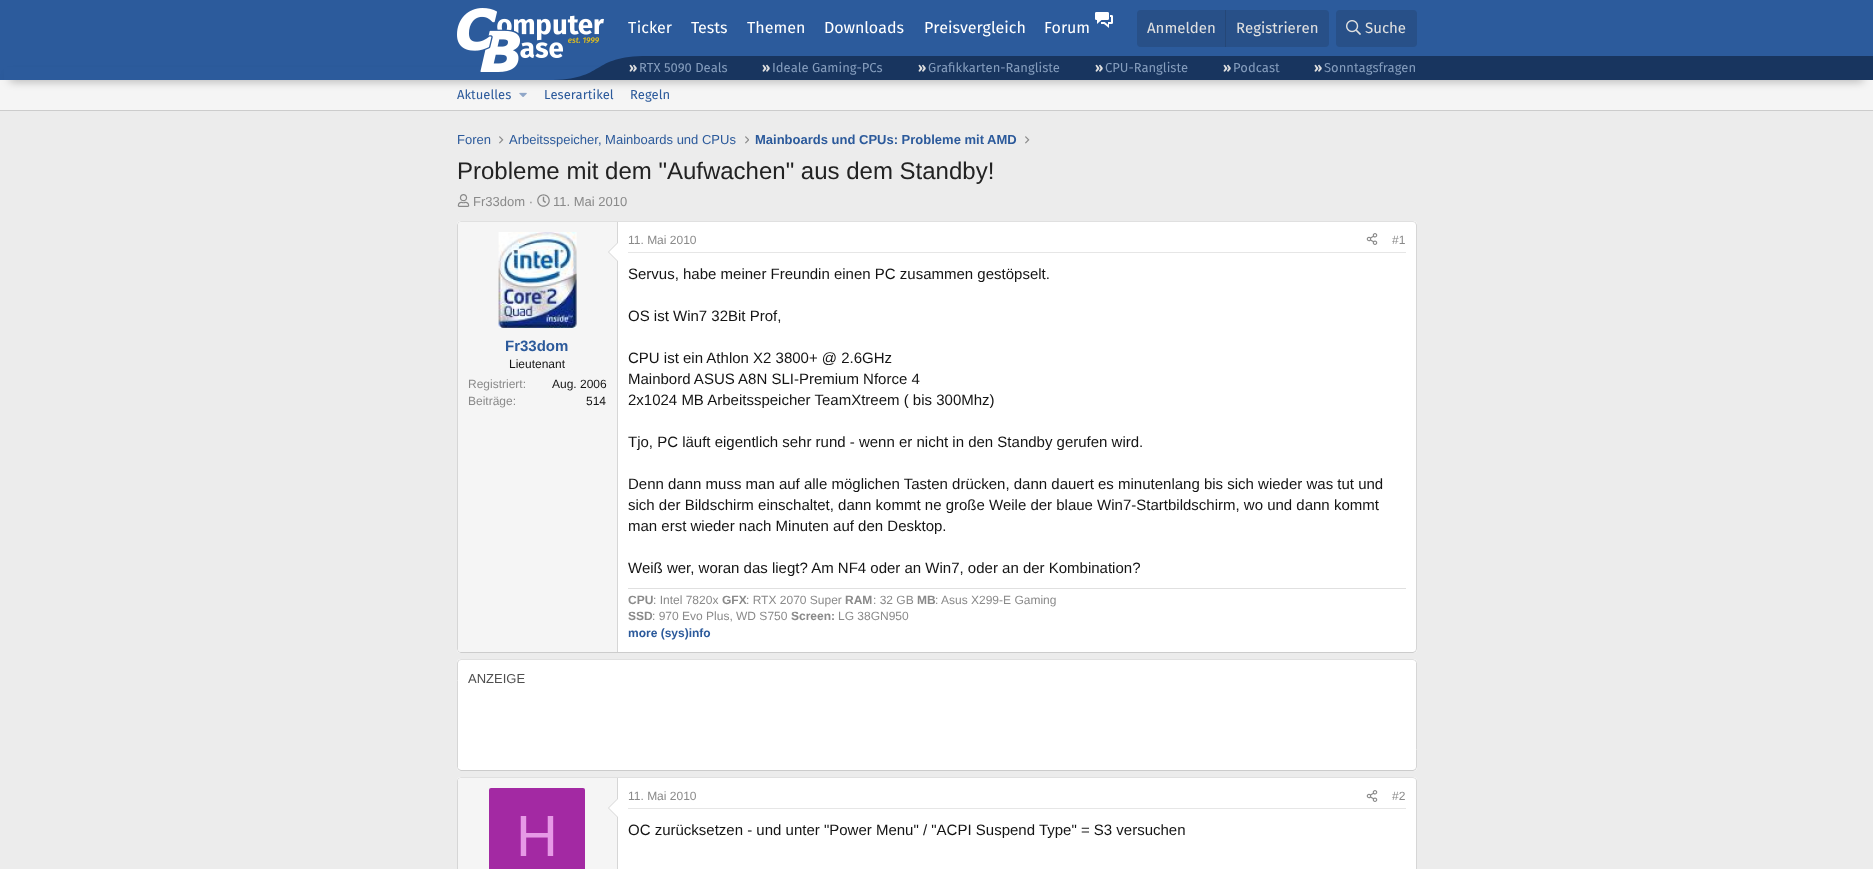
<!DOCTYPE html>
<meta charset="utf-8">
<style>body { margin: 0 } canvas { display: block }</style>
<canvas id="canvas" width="1873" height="869"></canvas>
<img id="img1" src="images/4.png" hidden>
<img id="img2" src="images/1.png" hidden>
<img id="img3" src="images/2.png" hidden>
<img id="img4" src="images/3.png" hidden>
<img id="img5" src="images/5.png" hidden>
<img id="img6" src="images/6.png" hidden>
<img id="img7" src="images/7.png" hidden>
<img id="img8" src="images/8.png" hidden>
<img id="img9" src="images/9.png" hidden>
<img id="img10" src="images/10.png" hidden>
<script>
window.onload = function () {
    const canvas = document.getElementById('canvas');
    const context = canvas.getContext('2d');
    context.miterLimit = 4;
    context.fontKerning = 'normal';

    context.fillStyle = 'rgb(44, 91, 156)';
    context.fillRect(0, 0, 1873, 869);
    context.fillStyle = 'rgb(245, 245, 245)';
    context.fillRect(0, 80, 1873, 30);
    context.drawImage(document.getElementById('img1'), 519, 92, 8, 5);
    context.fillStyle = 'rgba(0, 0, 0, 0.5)';
    context.filter = 'blur(5px)';
    context.beginPath();
    context.rect(10, 76, 1853, 4);
    context.fill();
    context.filter = 'none';
    context.fillStyle = 'rgb(44, 91, 156)';
    context.fillRect(4, 67, 643, 13);
    context.fillStyle = 'rgb(24, 53, 95)';
    context.beginPath();
    context.moveTo(548, 80);
    context.lineTo(1416, 80);
    context.lineTo(1416, 56);
    context.lineTo(648, 56);
    context.bezierCurveTo(588, 56, 608, 80, 548, 80);
    context.closePath();
    context.fill();
    context.drawImage(document.getElementById('img2'), 457, 8, 147, 64);
    context.drawImage(document.getElementById('img3'), 1095, 12, 18, 16);
    context.fillStyle = 'rgb(40, 80, 136)';
    context.beginPath();
    context.roundRect(1137, 10, 192, 37, 4);
    context.fill();
    context.fillStyle = 'rgb(37, 71, 119)';
    context.fillRect(1225, 10, 1, 37);
    context.fillStyle = 'rgb(40, 80, 136)';
    context.beginPath();
    context.roundRect(1336, 10, 81, 37, 4);
    context.fill();
    context.drawImage(document.getElementById('img4'), 1346, 20, 15, 15);
    context.fillStyle = 'rgb(24, 53, 95)';
    context.fillRect(1416, 56, 457, 24);
    context.fillStyle = 'rgb(204, 204, 204)';
    context.fillRect(0, 110, 1873, 1);
    context.fillStyle = 'rgb(236, 236, 236)';
    context.fillRect(0, 111, 1873, 758);
    context.drawImage(document.getElementById('img5'), 499, 136, 5, 8);
    context.drawImage(document.getElementById('img6'), 745, 136, 4, 8);
    context.drawImage(document.getElementById('img5'), 1025, 136, 5, 8);
    context.drawImage(document.getElementById('img7'), 457, 194, 13, 13);
    context.drawImage(document.getElementById('img8'), 537, 194, 13, 13);
    context.fillStyle = 'rgb(255, 255, 255)';
    context.beginPath();
    context.roundRect(457, 221, 960, 432, 4);
    context.fill();
    context.beginPath();
    context.moveTo(458.5, 222.5);
    context.lineTo(461, 221.5);
    context.lineTo(1413, 221.5);
    context.lineTo(1415.5, 222.5);
    context.strokeStyle = 'rgb(224, 224, 224)';
    context.stroke();
    context.beginPath();
    context.moveTo(1415.5, 222.5);
    context.lineTo(1416.5, 225);
    context.lineTo(1416.5, 649);
    context.lineTo(1415.5, 651.5);
    context.strokeStyle = 'rgb(214, 214, 214)';
    context.stroke();
    context.beginPath();
    context.moveTo(1415.5, 651.5);
    context.lineTo(1413, 652.5);
    context.lineTo(461, 652.5);
    context.lineTo(458.5, 651.5);
    context.strokeStyle = 'rgb(204, 204, 204)';
    context.stroke();
    context.beginPath();
    context.moveTo(458.5, 651.5);
    context.lineTo(457.5, 649);
    context.lineTo(457.5, 225);
    context.lineTo(458.5, 222.5);
    context.strokeStyle = 'rgb(214, 214, 214)';
    context.stroke();
    context.fillStyle = 'rgb(245, 245, 245)';
    context.beginPath();
    context.roundRect(458, 222, 160, 430, [3, 0, 0, 3]);
    context.fill();
    context.fillStyle = 'rgb(214, 214, 214)';
    context.fillRect(617, 222, 1, 430);
    context.drawImage(document.getElementById('img9'), 498, 232, 79, 96);
    context.beginPath();
    context.moveTo(618, 242);
    context.lineTo(618, 262);
    context.lineTo(608, 252);
    context.closePath();
    context.fill();
    context.fillStyle = 'rgb(255, 255, 255)';
    context.beginPath();
    context.moveTo(618, 243);
    context.lineTo(618, 261);
    context.lineTo(609, 252);
    context.closePath();
    context.fill();
    context.fillStyle = 'rgb(230, 230, 230)';
    context.fillRect(628, 252, 778, 1);
    context.drawImage(document.getElementById('img10'), 1366, 233, 12, 12);
    context.fillStyle = 'rgb(224, 224, 224)';
    context.fillRect(628, 588, 778, 1);
    context.fillStyle = 'rgb(255, 255, 255)';
    context.beginPath();
    context.roundRect(457, 659, 960, 112, 4);
    context.fill();
    context.beginPath();
    context.moveTo(458.5, 660.5);
    context.lineTo(461, 659.5);
    context.lineTo(1413, 659.5);
    context.lineTo(1415.5, 660.5);
    context.strokeStyle = 'rgb(224, 224, 224)';
    context.stroke();
    context.beginPath();
    context.moveTo(1415.5, 660.5);
    context.lineTo(1416.5, 662.5);
    context.lineTo(1416.5, 749.5);
    context.lineTo(1416.5, 767);
    context.lineTo(1415.5, 769.5);
    context.strokeStyle = 'rgb(214, 214, 214)';
    context.stroke();
    context.beginPath();
    context.moveTo(1415.5, 769.5);
    context.lineTo(1413, 770.5);
    context.lineTo(461, 770.5);
    context.lineTo(458.5, 769.5);
    context.strokeStyle = 'rgb(204, 204, 204)';
    context.stroke();
    context.beginPath();
    context.moveTo(458.5, 769.5);
    context.lineTo(457.5, 767.5);
    context.lineTo(457.5, 680.5);
    context.lineTo(457.5, 663);
    context.lineTo(458.5, 660.5);
    context.strokeStyle = 'rgb(214, 214, 214)';
    context.stroke();
    context.beginPath();
    context.roundRect(457, 777, 960, 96, 4);
    context.fill();
    context.beginPath();
    context.moveTo(458.5, 778.5);
    context.lineTo(461, 777.5);
    context.lineTo(1413, 777.5);
    context.lineTo(1415.5, 778.5);
    context.strokeStyle = 'rgb(224, 224, 224)';
    context.stroke();
    context.beginPath();
    context.moveTo(1415.5, 778.5);
    context.bezierCurveTo(1416, 779, 1416.5, 780, 1416.5, 781);
    context.lineTo(1416.5, 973);
    context.bezierCurveTo(1416.5, 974, 1416, 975, 1415.5, 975.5);
    context.strokeStyle = 'rgb(214, 214, 214)';
    context.stroke();
    context.beginPath();
    context.moveTo(458.5, 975.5);
    context.bezierCurveTo(458, 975, 457.5, 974, 457.5, 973);
    context.lineTo(457.5, 781);
    context.bezierCurveTo(457.5, 780, 458, 779, 458.5, 778.5);
    context.stroke();
    context.fillStyle = 'rgb(245, 245, 245)';
    context.beginPath();
    context.moveTo(461, 778);
    context.lineTo(618, 778);
    context.lineTo(618, 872);
    context.lineTo(461, 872);
    context.bezierCurveTo(459.5, 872, 458, 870.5, 458, 869);
    context.lineTo(458, 781);
    context.bezierCurveTo(458, 779.5, 459.5, 778, 461, 778);
    context.closePath();
    context.fill();
    context.fillStyle = 'rgb(214, 214, 214)';
    context.fillRect(617, 778, 1, 91);
    context.beginPath();
    context.moveTo(618, 798);
    context.lineTo(618, 818);
    context.lineTo(608, 808);
    context.closePath();
    context.fill();
    context.fillStyle = 'rgb(255, 255, 255)';
    context.beginPath();
    context.moveTo(618, 799);
    context.lineTo(618, 817);
    context.lineTo(609, 808);
    context.closePath();
    context.fill();
    context.fillStyle = 'rgb(163, 41, 163)';
    context.beginPath();
    context.roundRect(489, 788, 96, 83, 2);
    context.fill();
    context.fillStyle = 'rgb(230, 230, 230)';
    context.fillRect(628, 808, 778, 1);
    context.drawImage(document.getElementById('img10'), 1366, 790, 12, 12);
    context.font = '16px Fira Sans';
    context.fillStyle = 'rgb(255, 255, 255)';
    context.fillText('Ticker', 628, 33);
    context.fillText('Tests', 691, 33);
    context.fillText('Themen', 747, 33);
    context.fillText('Downloads', 824, 33);
    context.fillText('Preisvergleich', 924, 33);
    context.fillText('Forum', 1044, 33);
    context.font = '15px Fira Sans';
    context.fillStyle = 'rgb(224, 224, 224)';
    context.fillText('Anmelden', 1147, 33);
    context.fillText('Registrieren', 1236, 33);
    context.fillText('Suche', 1365, 33);
    context.font = 'bold 13px Fira Sans';
    context.fillText('»', 629, 72);
    context.font = '13px Fira Sans';
    context.fillStyle = 'rgb(133, 157, 189)';
    context.fillText('RTX 5090 Deals', 639, 72);
    context.font = 'bold 13px Fira Sans';
    context.fillStyle = 'rgb(224, 224, 224)';
    context.fillText('»', 762, 72);
    context.font = '13px Fira Sans';
    context.fillStyle = 'rgb(133, 157, 189)';
    context.fillText('Ideale Gaming-PCs', 772, 72);
    context.font = 'bold 13px Fira Sans';
    context.fillStyle = 'rgb(224, 224, 224)';
    context.fillText('»', 918, 72);
    context.font = '13px Fira Sans';
    context.fillStyle = 'rgb(133, 157, 189)';
    context.fillText('Grafikkarten-Rangliste', 928, 72);
    context.font = 'bold 13px Fira Sans';
    context.fillStyle = 'rgb(224, 224, 224)';
    context.fillText('»', 1095, 72);
    context.font = '13px Fira Sans';
    context.fillStyle = 'rgb(133, 157, 189)';
    context.fillText('CPU-Rangliste', 1105, 72);
    context.font = 'bold 13px Fira Sans';
    context.fillStyle = 'rgb(224, 224, 224)';
    context.fillText('»', 1223, 72);
    context.font = '13px Fira Sans';
    context.fillStyle = 'rgb(133, 157, 189)';
    context.fillText('Podcast', 1233, 72);
    context.font = 'bold 13px Fira Sans';
    context.fillStyle = 'rgb(224, 224, 224)';
    context.fillText('»', 1314, 72);
    context.font = '13px Fira Sans';
    context.fillStyle = 'rgb(133, 157, 189)';
    context.fillText('Sonntagsfragen', 1324, 72);
    context.fillStyle = 'rgb(44, 90, 155)';
    context.fillText('Aktuelles', 457, 99);
    context.fillText('Leserartikel', 544, 99);
    context.fillText('Regeln', 630, 99);
    context.font = '13px Liberation Sans';
    context.fillText('Foren', 457, 144);
    context.fillText('Arbeitsspeicher, Mainboards und CPUs', 509, 144);
    context.font = 'bold 13px Liberation Sans';
    context.fillText('Mainboards und CPUs: Probleme mit AMD', 755, 144);
    context.font = '24px Liberation Sans';
    context.fillStyle = 'rgb(34, 34, 34)';
    context.fillText('Probleme mit dem "Aufwachen" aus dem Standby!', 457, 179);
    context.font = '13px Liberation Sans';
    context.fillStyle = 'rgb(138, 138, 138)';
    context.fillText('Fr33dom ·', 473, 206);
    context.fillText('11. Mai 2010', 553, 206);
    context.font = 'bold 15px Liberation Sans';
    context.fillStyle = 'rgb(44, 90, 155)';
    context.fillText('Fr33dom', 505, 351);
    context.font = '12px Liberation Sans';
    context.fillStyle = 'rgb(20, 20, 20)';
    context.fillText('Lieutenant', 509, 368);
    context.fillStyle = 'rgb(138, 138, 138)';
    context.fillText('Registriert:', 468, 388);
    context.fillStyle = 'rgb(20, 20, 20)';
    context.fillText('Aug. 2006', 552, 388);
    context.fillStyle = 'rgb(138, 138, 138)';
    context.fillText('Beiträge:', 468, 405);
    context.fillStyle = 'rgb(20, 20, 20)';
    context.fillText('514', 586, 405);
    context.fillStyle = 'rgb(138, 138, 138)';
    context.fillText('11. Mai 2010', 628, 244);
    context.fillText('#1', 1392, 244);
    context.font = '15px Liberation Sans';
    context.fillStyle = 'rgb(20, 20, 20)';
    context.fillText('Servus, habe meiner Freundin einen PC zusammen gestöpselt.', 628, 279);
    context.fillText('OS ist Win7 32Bit Prof,', 628, 321);
    context.fillText('CPU ist ein Athlon X2 3800+ @ 2.6GHz', 628, 363);
    context.fillText('Mainbord ASUS A8N SLI-Premium Nforce 4', 628, 384);
    context.fillText('2x1024 MB Arbeitsspeicher TeamXtreem ( bis 300Mhz)', 628, 405);
    context.fillText('Tjo, PC läuft eigentlich sehr rund - wenn er nicht in den Standby gerufen wird.', 628, 447);
    context.fillText('Denn dann muss man auf alle möglichen Tasten drücken, dann dauert es minutenlang bis sich wieder was tut und', 628, 489);
    context.fillText('sich der Bildschirm einschaltet, dann kommt ne große Weile der blaue Win7-Startbildschirm, wo und dann kommt', 628, 510);
    context.fillText('man erst wieder nach Minuten auf den Desktop.', 628, 531);
    context.fillText('Weiß wer, woran das liegt? Am NF4 oder an Win7, oder an der Kombination?', 628, 573);
    context.font = 'bold 12px Liberation Sans';
    context.fillStyle = 'rgb(138, 138, 138)';
    context.fillText('CPU', 628, 604);
    context.font = '12px Liberation Sans';
    context.fillText(': Intel 7820x', 653, 604);
    context.font = 'bold 12px Liberation Sans';
    context.fillText('GFX', 722, 604);
    context.font = '12px Liberation Sans';
    context.fillText(': RTX 2070 Super', 746, 604);
    context.font = 'bold 12px Liberation Sans';
    context.fillText('RAM', 845, 604);
    context.font = '12px Liberation Sans';
    context.fillText(': 32 GB', 873, 604);
    context.font = 'bold 12px Liberation Sans';
    context.fillText('MB', 917, 604);
    context.font = '12px Liberation Sans';
    context.fillText(': Asus X299-E Gaming', 935, 604);
    context.font = 'bold 12px Liberation Sans';
    context.fillText('SSD', 628, 620);
    context.font = '12px Liberation Sans';
    context.fillText(': 970 Evo Plus, WD S750', 652, 620);
    context.font = 'bold 12px Liberation Sans';
    context.fillText('Screen:', 791, 620);
    context.font = '12px Liberation Sans';
    context.fillText('LG 38GN950', 838, 620);
    context.font = 'bold 12px Liberation Sans';
    context.fillStyle = 'rgb(44, 90, 155)';
    context.fillText('more (sys)info', 628, 637);
    context.font = '13px Liberation Sans';
    context.fillStyle = 'rgb(79, 79, 79)';
    context.fillText('ANZEIGE', 468, 683);
    context.font = '58px Liberation Sans';
    context.fillStyle = 'rgb(230, 153, 230)';
    context.fillText('H', 516, 856);
    context.font = '12px Liberation Sans';
    context.fillStyle = 'rgb(138, 138, 138)';
    context.fillText('11. Mai 2010', 628, 800);
    context.fillText('#2', 1392, 800);
    context.font = '15px Liberation Sans';
    context.fillStyle = 'rgb(20, 20, 20)';
    context.fillText('OC zurücksetzen - und unter "Power Menu" / "ACPI Suspend Type" = S3 versuchen', 628, 835);
};
</script>
